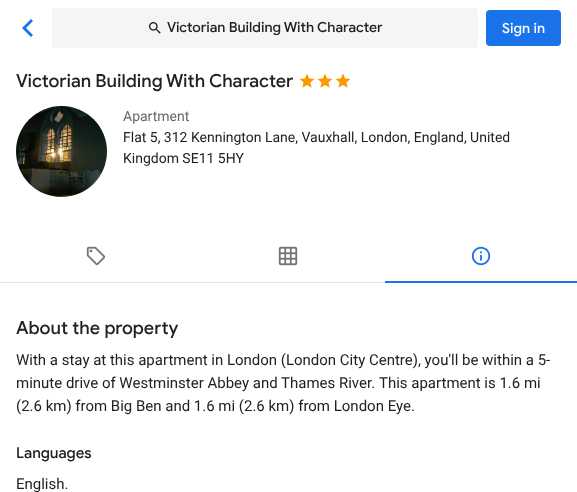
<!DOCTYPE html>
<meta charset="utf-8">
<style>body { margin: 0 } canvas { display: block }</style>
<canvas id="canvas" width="577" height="492"></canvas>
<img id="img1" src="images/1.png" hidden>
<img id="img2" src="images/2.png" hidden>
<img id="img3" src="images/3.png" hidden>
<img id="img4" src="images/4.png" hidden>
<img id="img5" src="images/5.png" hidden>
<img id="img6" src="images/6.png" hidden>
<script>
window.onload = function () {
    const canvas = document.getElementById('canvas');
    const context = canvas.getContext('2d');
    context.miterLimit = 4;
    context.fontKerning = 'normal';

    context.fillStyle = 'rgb(255, 255, 255)';
    context.fillRect(0, 0, 577, 492);
    context.fillStyle = 'rgb(26, 115, 232)';
    context.beginPath();
    context.moveTo(33, 35);
    context.lineTo(26, 28);
    context.lineTo(33, 21);
    context.lineTo(31, 19);
    context.lineTo(22, 28);
    context.lineTo(31, 37);
    context.closePath();
    context.fill();
    context.fillStyle = 'rgb(245, 245, 245)';
    context.beginPath();
    context.roundRect(52, 8, 426, 40, 4);
    context.fill();
    context.drawImage(document.getElementById('img1'), 149, 22, 12, 12);
    context.fillStyle = 'rgb(26, 115, 232)';
    context.beginPath();
    context.roundRect(486, 10, 75, 36, 4);
    context.fill();
    context.drawImage(document.getElementById('img2'), 299, 73, 16, 15);
    context.drawImage(document.getElementById('img2'), 317, 73, 16, 15);
    context.drawImage(document.getElementById('img2'), 335, 73, 16, 15);
    context.drawImage(document.getElementById('img3'), 16, 106, 91, 91);
    context.drawImage(document.getElementById('img4'), 86, 246, 20, 20);
    context.drawImage(document.getElementById('img5'), 278, 246, 20, 20);
    context.drawImage(document.getElementById('img6'), 471, 246, 20, 20);
    context.fillRect(385, 281, 192, 2);
    context.fillStyle = 'rgb(224, 224, 224)';
    context.fillRect(0, 282, 385, 1);
    context.save();
    context.beginPath();
    context.rect(167, 21, 216, 14);
    context.clip();
    context.font = '500 14px Google Sans';
    context.fillStyle = 'rgb(33, 33, 33)';
    context.fillText('Victorian Building With Character', 167, 32);
    context.restore();
    context.font = '500 14px Google Sans';
    context.fillStyle = 'rgb(255, 255, 255)';
    context.fillText('Sign in', 502, 33);
    context.font = '500 18px Google Sans';
    context.fillStyle = 'rgb(33, 33, 33)';
    context.fillText('Victorian Building With Character', 16, 87);
    context.font = '14px Roboto';
    context.fillStyle = 'rgb(102, 102, 102)';
    context.fillText('Apartment', 123, 121);
    context.fillStyle = 'rgb(33, 33, 33)';
    context.fillText('Flat 5, 312 Kennington Lane, Vauxhall, London, England, United', 123, 142);
    context.fillText('Kingdom SE11 5HY', 123, 163);
    context.font = '500 18px Google Sans';
    context.fillText('About the property', 16, 334);
    context.font = '15px Roboto';
    context.fillText('With a stay at this apartment in London (London City Centre), you\'ll be within a 5-', 16, 365);
    context.fillText('minute drive of Westminster Abbey and Thames River.', 16, 388);
    context.fillText('This apartment is 1.6 mi', 379, 388);
    context.fillText('(2.6 km) from Big Ben and 1.6 mi (2.6 km) from London Eye.', 16, 411);
    context.font = '500 15px Google Sans';
    context.fillText('Languages', 16, 458);
    context.font = '15px Roboto';
    context.fillText('English.', 16, 489);
};
</script>
